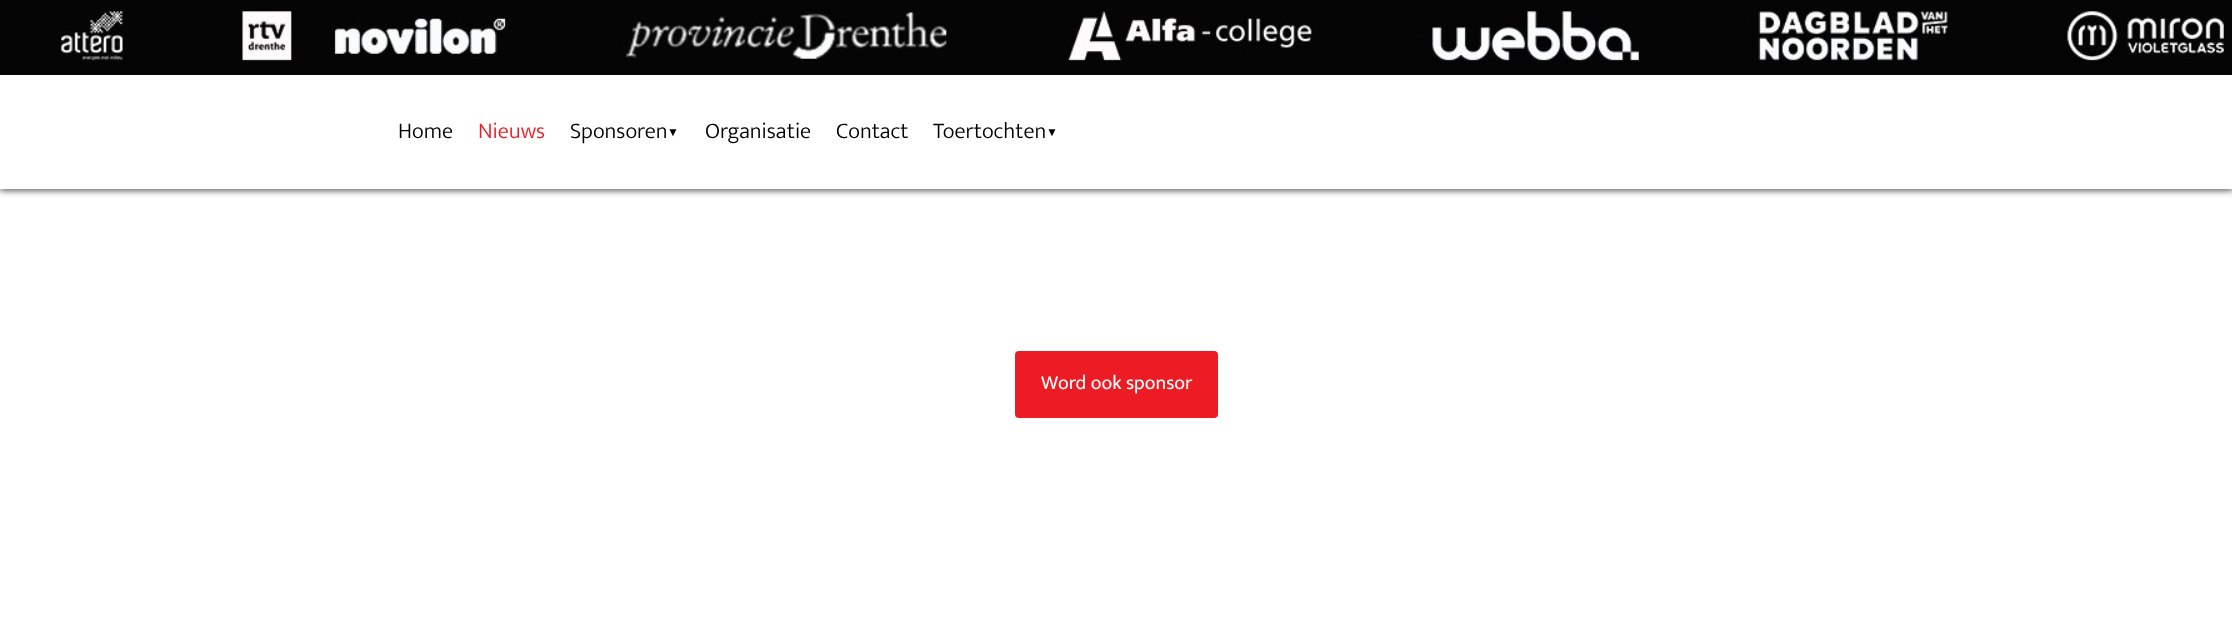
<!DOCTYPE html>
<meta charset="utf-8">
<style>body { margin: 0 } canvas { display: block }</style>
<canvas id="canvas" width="2232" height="642"></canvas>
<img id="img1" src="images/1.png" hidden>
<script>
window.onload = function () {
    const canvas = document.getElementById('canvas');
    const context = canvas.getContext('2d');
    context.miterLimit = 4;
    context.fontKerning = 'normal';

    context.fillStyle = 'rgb(255, 255, 255)';
    context.fillRect(0, 0, 2232, 642);
    context.save();
    context.beginPath();
    context.moveTo(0, 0);
    context.lineTo(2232, 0);
    context.lineTo(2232, 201);
    context.lineTo(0, 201);
    context.closePath();
    context.moveTo(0, 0);
    context.lineTo(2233, 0);
    context.lineTo(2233, 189);
    context.lineTo(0, 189);
    context.closePath();
    context.clip('evenodd');
    context.fillStyle = 'rgba(50, 50, 50, 0.75)';
    context.filter = 'blur(3px)';
    context.beginPath();
    context.rect(0, 3, 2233, 188);
    context.fill();
    context.filter = 'none';
    context.restore();
    context.drawImage(document.getElementById('img1'), 0, 0, 2232, 75);
    context.fillStyle = 'rgb(237, 28, 36)';
    context.beginPath();
    context.roundRect(1015, 351, 203, 67, 4);
    context.fill();
    context.font = '300 22.5px Ek Mukta';
    context.fillStyle = 'rgb(0, 0, 0)';
    context.fillText('Home', 398, 138);
    context.fillStyle = 'rgb(237, 28, 36)';
    context.fillText('Nieuws', 478, 138);
    context.fillStyle = 'rgb(0, 0, 0)';
    context.fillText('Sponsoren', 570, 138);
    context.font = '12px Liberation Sans';
    context.fillText('▼', 667, 136);
    context.font = '300 22.5px Ek Mukta';
    context.fillText('Organisatie', 705, 138);
    context.fillText('Contact', 836, 138);
    context.fillText('Toertochten', 933, 138);
    context.font = '12px Liberation Sans';
    context.fillText('▼', 1046, 136);
    context.font = '20px Ek Mukta';
    context.fillStyle = 'rgb(255, 255, 255)';
    context.fillText('Word ook sponsor', 1041, 389);
};
</script>
